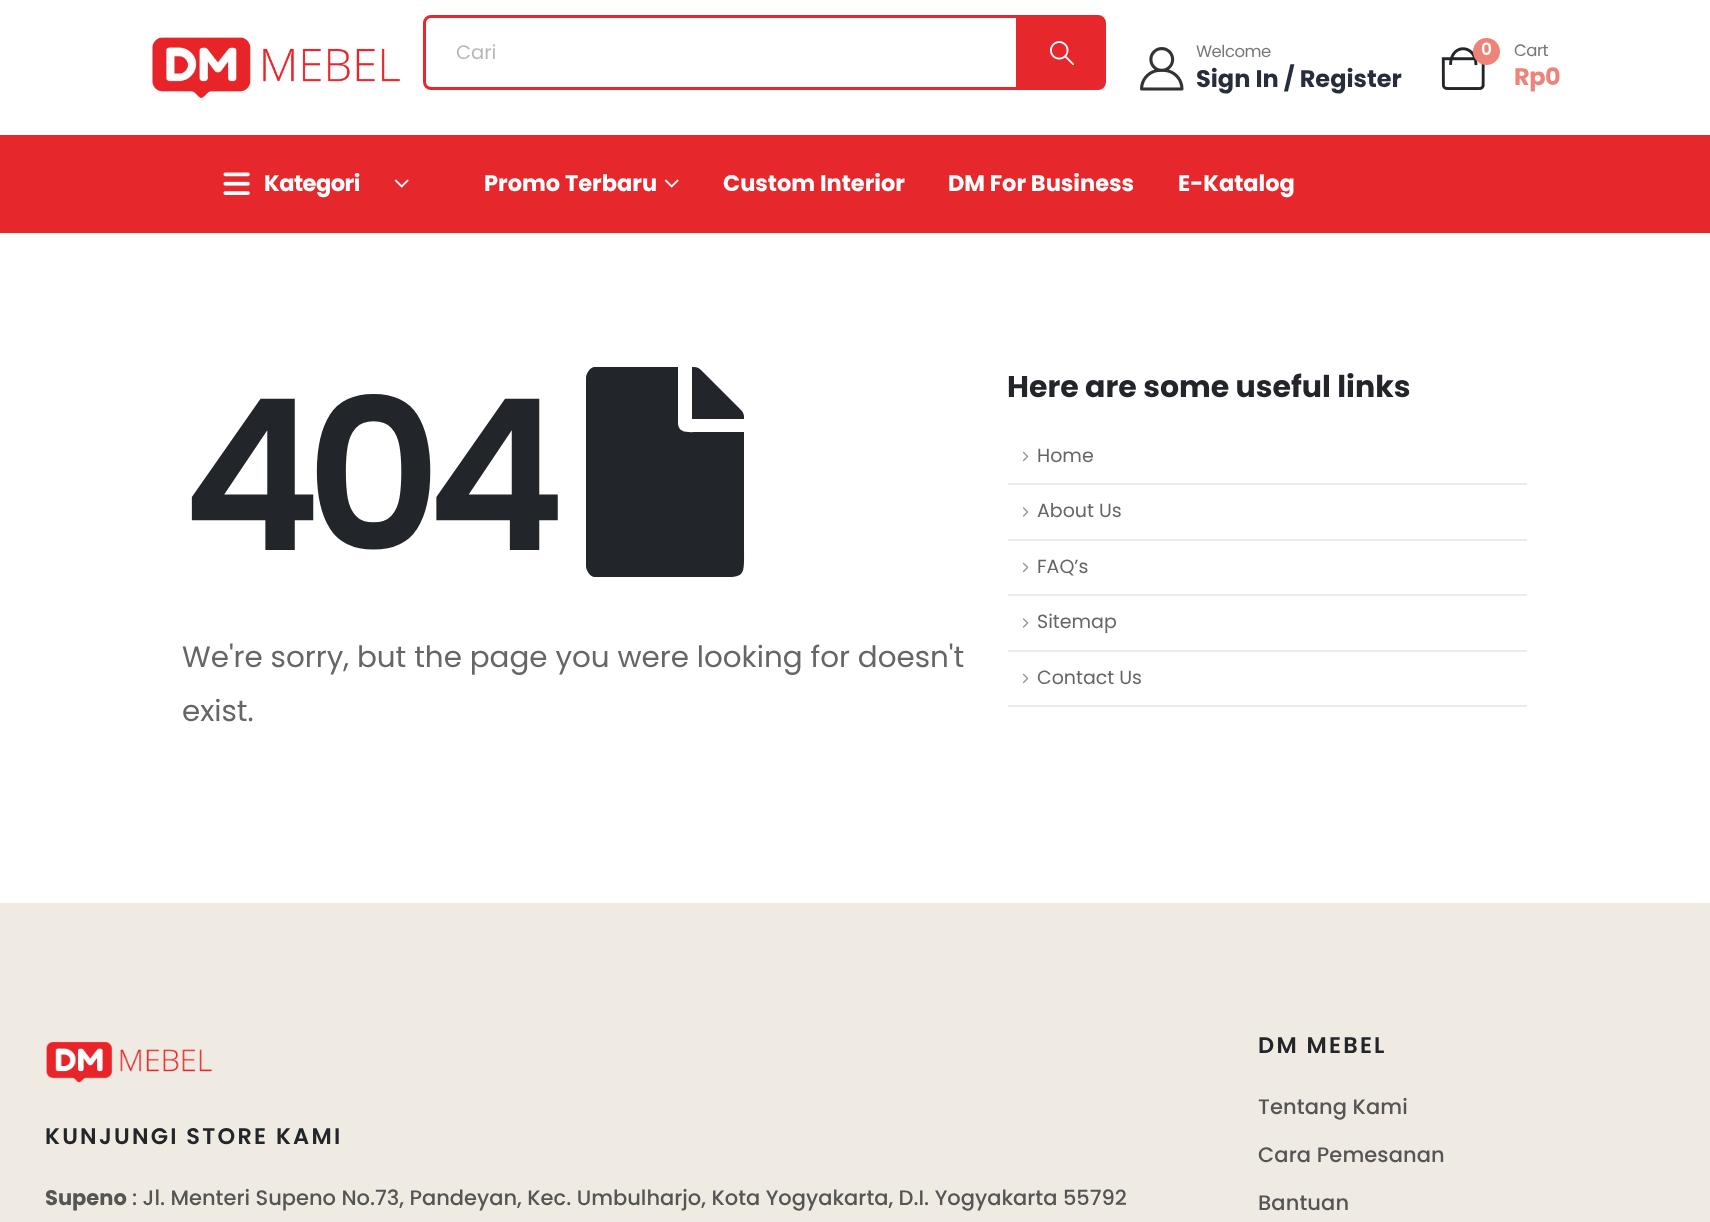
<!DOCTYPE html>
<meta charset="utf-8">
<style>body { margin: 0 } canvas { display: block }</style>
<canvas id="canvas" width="1710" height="1222"></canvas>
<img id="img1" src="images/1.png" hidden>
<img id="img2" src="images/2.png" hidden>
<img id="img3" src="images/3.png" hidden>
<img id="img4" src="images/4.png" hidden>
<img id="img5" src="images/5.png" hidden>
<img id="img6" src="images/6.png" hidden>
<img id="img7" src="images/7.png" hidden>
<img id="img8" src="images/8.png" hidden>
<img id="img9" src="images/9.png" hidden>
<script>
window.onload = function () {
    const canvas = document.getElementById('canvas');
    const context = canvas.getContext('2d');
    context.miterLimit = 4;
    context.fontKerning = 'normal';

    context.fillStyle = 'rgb(255, 255, 255)';
    context.fillRect(0, 0, 1710, 1222);
    context.drawImage(document.getElementById('img1'), 152, 37, 248, 61);
    context.beginPath();
    context.roundRect(424.5, 16.5, 680, 72, 6.5);
    context.strokeStyle = 'rgb(230, 40, 45)';
    context.lineWidth = 3;
    context.stroke();
    context.fillStyle = 'rgb(230, 40, 45)';
    context.fillRect(1016, 18, 87, 69);
    context.drawImage(document.getElementById('img2'), 1050, 41, 24, 25);
    context.drawImage(document.getElementById('img3'), 1140, 47, 44, 44);
    context.drawImage(document.getElementById('img4'), 1441, 47, 44, 43);
    context.fillStyle = 'rgb(238, 131, 121)';
    context.beginPath();
    context.arc(1486.5, 51.5, 13.5, 0, 2 * Math.PI);
    context.fill();
    context.fillStyle = 'rgb(230, 40, 45)';
    context.fillRect(0, 135, 1710, 98);
    context.drawImage(document.getElementById('img5'), 223, 172, 27, 23);
    context.drawImage(document.getElementById('img6'), 394, 179, 15, 9);
    context.drawImage(document.getElementById('img6'), 664, 179, 15, 9);
    context.fillStyle = 'rgb(34, 37, 41)';
    context.beginPath();
    context.moveTo(678, 423);
    context.bezierCurveTo(678, 434, 690, 432, 698, 432);
    context.lineTo(744, 432);
    context.lineTo(744, 544);
    context.bezierCurveTo(744, 580, 747, 577, 711, 577);
    context.lineTo(594, 577);
    context.bezierCurveTo(590, 576, 587, 572, 586, 567);
    context.lineTo(586, 377);
    context.bezierCurveTo(587, 372, 590, 368, 594, 367);
    context.lineTo(678, 367);
    context.closePath();
    context.moveTo(744, 417);
    context.lineTo(744, 419);
    context.lineTo(692, 419);
    context.lineTo(692, 367);
    context.lineTo(694, 367);
    context.bezierCurveTo(697, 367, 699, 368, 701, 370);
    context.lineTo(741, 410);
    context.bezierCurveTo(743, 412, 744, 414, 744, 417);
    context.closePath();
    context.fill();
    context.fillStyle = 'rgb(235, 235, 235)';
    context.fillRect(1008, 483, 519, 2);
    context.drawImage(document.getElementById('img7'), 1022, 451, 7, 11);
    context.fillRect(1008, 539, 519, 2);
    context.drawImage(document.getElementById('img8'), 1022, 507, 7, 10);
    context.fillRect(1008, 594, 519, 2);
    context.drawImage(document.getElementById('img7'), 1022, 562, 7, 11);
    context.fillRect(1008, 650, 519, 2);
    context.drawImage(document.getElementById('img8'), 1022, 618, 7, 10);
    context.fillRect(1008, 705, 519, 2);
    context.drawImage(document.getElementById('img7'), 1022, 673, 7, 11);
    context.fillStyle = 'rgb(240, 235, 226)';
    context.fillRect(0, 903, 1710, 319);
    context.drawImage(document.getElementById('img9'), 46, 1041, 167, 42);
    context.font = '19.5px Poppins';
    context.fillStyle = 'rgb(184, 184, 184)';
    context.fillText('Cari', 456, 59);
    context.letterSpacing = '-0.5px';
    context.font = '16.5px Poppins';
    context.fillStyle = 'rgb(119, 119, 119)';
    context.fillText('Welcome', 1196, 57);
    context.letterSpacing = '0px';
    context.font = 'bold 24px Poppins';
    context.fillStyle = 'rgb(40, 45, 59)';
    context.fillText('Sign In / Register', 1196, 87);
    context.font = '600 17px Poppins';
    context.fillStyle = 'rgb(255, 255, 255)';
    context.fillText('0', 1481, 55);
    context.letterSpacing = '-0.5px';
    context.font = '16.5px Poppins';
    context.fillStyle = 'rgb(119, 119, 119)';
    context.fillText('Cart', 1514, 56);
    context.font = 'bold 24px Poppins';
    context.fillStyle = 'rgb(238, 131, 121)';
    context.fillText('Rp0', 1514, 85);
    context.font = 'bold 22.5px Poppins';
    context.fillStyle = 'rgb(255, 255, 255)';
    context.fillText('Kategori', 264, 191);
    context.letterSpacing = '0px';
    context.fillText('Promo Terbaru', 484, 191);
    context.fillText('Custom Interior', 723, 191);
    context.fillText('DM For Business', 948, 191);
    context.fillText('E-Katalog', 1178, 191);
    context.letterSpacing = '-15px';
    context.font = '600 210px Poppins';
    context.fillStyle = 'rgb(34, 37, 41)';
    context.fillText('404', 182, 550);
    context.letterSpacing = '0px';
    context.font = '29.4px Poppins';
    context.fillStyle = 'rgb(102, 102, 102)';
    context.fillText('We\'re sorry, but the page you were looking for doesn\'t', 182, 667);
    context.fillText('exist.', 182, 721);
    context.font = 'bold 30px Poppins';
    context.fillStyle = 'rgb(34, 37, 41)';
    context.fillText('Here are some useful links', 1007, 397);
    context.font = '19px Poppins';
    context.fillStyle = 'rgb(102, 102, 102)';
    context.fillText('Home', 1037, 462);
    context.fillText('About Us', 1037, 517);
    context.fillText('FAQ’s', 1037, 573);
    context.fillText('Sitemap', 1037, 628);
    context.fillText('Contact Us', 1037, 684);
    context.letterSpacing = '2.25px';
    context.font = '600 22.5px Poppins';
    context.fillStyle = 'rgb(34, 37, 41)';
    context.fillText('KUNJUNGI STORE KAMI', 45, 1144);
    context.letterSpacing = '0px';
    context.font = 'bold 21px Poppins';
    context.fillStyle = 'rgb(85, 85, 85)';
    context.fillText('Supeno', 45, 1205);
    context.font = '500 21px Poppins';
    context.fillText(': Jl. Menteri Supeno No.73, Pandeyan, Kec. Umbulharjo, Kota Yogyakarta, D.I. Yogyakarta 55792', 132, 1205);
    context.letterSpacing = '2.25px';
    context.font = '600 22.5px Poppins';
    context.fillStyle = 'rgb(34, 37, 41)';
    context.fillText('DM MEBEL', 1258, 1053);
    context.letterSpacing = '0.1px';
    context.font = '500 21px Poppins';
    context.fillStyle = 'rgb(85, 85, 85)';
    context.fillText('Tentang Kami', 1258, 1114);
    context.fillText('Cara Pemesanan', 1258, 1162);
    context.fillText('Bantuan', 1258, 1210);
};
</script>
